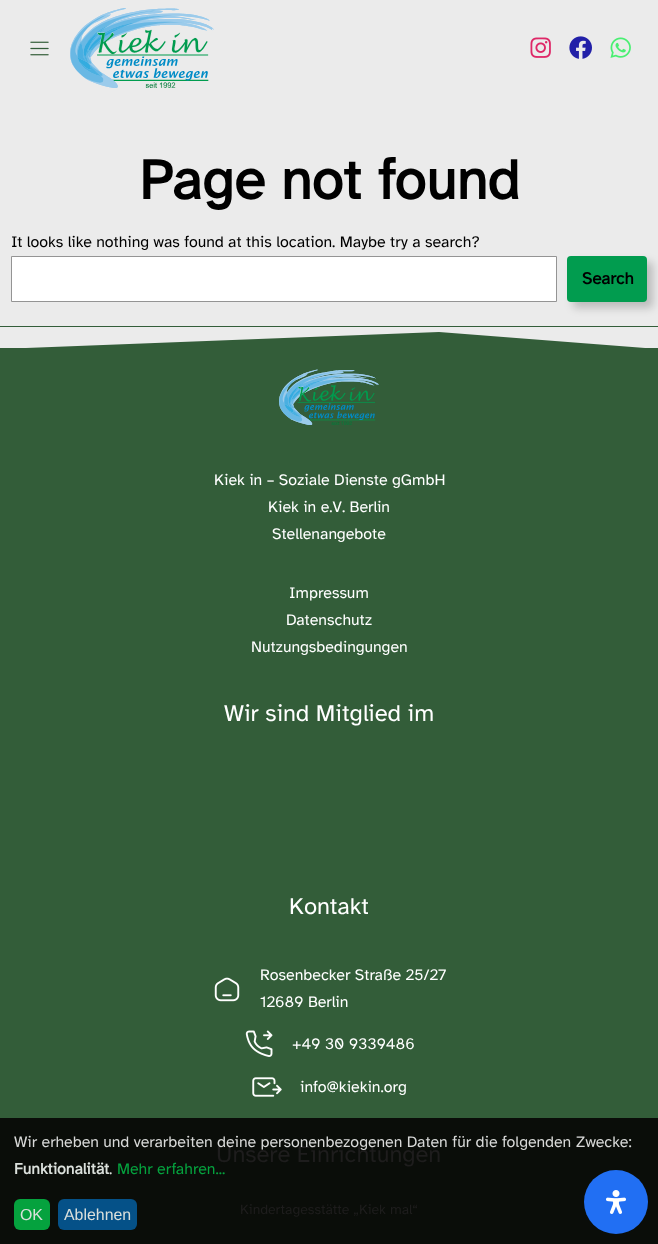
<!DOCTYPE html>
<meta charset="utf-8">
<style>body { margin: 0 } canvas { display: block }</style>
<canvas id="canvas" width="658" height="1244"></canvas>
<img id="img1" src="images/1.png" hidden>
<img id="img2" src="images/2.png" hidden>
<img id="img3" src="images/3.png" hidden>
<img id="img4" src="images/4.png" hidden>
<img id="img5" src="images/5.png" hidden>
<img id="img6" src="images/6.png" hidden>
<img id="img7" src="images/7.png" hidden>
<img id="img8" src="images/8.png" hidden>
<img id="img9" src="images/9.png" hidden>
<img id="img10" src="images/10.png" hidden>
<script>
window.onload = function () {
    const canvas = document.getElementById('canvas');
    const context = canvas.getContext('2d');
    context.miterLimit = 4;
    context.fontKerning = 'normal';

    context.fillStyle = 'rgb(235, 235, 235)';
    context.fillRect(0, 0, 658, 1244);
    context.drawImage(document.getElementById('img1'), 30, 41, 19, 15);
    context.drawImage(document.getElementById('img2'), 70, 8, 144, 80);
    context.drawImage(document.getElementById('img3'), 530, 37, 21, 21);
    context.drawImage(document.getElementById('img4'), 569, 36, 23, 23);
    context.drawImage(document.getElementById('img5'), 610, 37, 21, 21);
    context.fillStyle = 'rgb(255, 255, 255)';
    context.beginPath();
    context.rect(11.5, 256.5, 545, 45);
    context.fill();
    context.strokeStyle = 'rgb(148, 148, 148)';
    context.stroke();
    context.fillStyle = 'rgba(0, 0, 0, 0.2)';
    context.filter = 'blur(4.5px)';
    context.beginPath();
    context.roundRect(573, 262, 80, 46, 4);
    context.fill();
    context.filter = 'none';
    context.fillStyle = 'rgb(1, 156, 79)';
    context.beginPath();
    context.roundRect(567, 256, 80, 46, 4);
    context.fill();
    context.fillStyle = 'rgb(51, 93, 57)';
    context.fillRect(0, 326, 658, 792);
    context.fillStyle = 'rgb(10, 13, 9)';
    context.fillRect(0, 1118, 658, 126);
    context.save();
    context.beginPath();
    context.rect(0, 326, 658, 22);
    context.clip();
    context.fillStyle = 'rgb(235, 235, 235)';
    context.beginPath();
    context.moveTo(0, 327);
    context.lineTo(658, 327);
    context.lineTo(658, 349);
    context.lineTo(439, 332);
    context.lineTo(0, 349);
    context.closePath();
    context.fill();
    context.restore();
    context.drawImage(document.getElementById('img6'), 279, 369, 100, 56);
    context.drawImage(document.getElementById('img7'), 214, 977, 26, 25);
    context.drawImage(document.getElementById('img8'), 245, 1030, 28, 27);
    context.drawImage(document.getElementById('img9'), 252, 1077, 30, 20);
    context.fillStyle = 'rgb(5, 162, 62)';
    context.beginPath();
    context.roundRect(14, 1199, 36, 31, 6);
    context.fill();
    context.fillStyle = 'rgb(5, 81, 136)';
    context.beginPath();
    context.roundRect(58, 1199, 79, 31, 6);
    context.fill();
    context.fillStyle = 'rgb(33, 111, 243)';
    context.beginPath();
    context.arc(616, 1202, 32, 0, 2 * Math.PI);
    context.fill();
    context.drawImage(document.getElementById('img10'), 606, 1190, 20, 24);
    context.font = 'bold 57.25px Atkinson Hyperlegible';
    context.fillStyle = 'rgb(0, 0, 0)';
    context.fillText('Page not found', 139, 199);
    context.font = '15.9px Atkinson Hyperlegible';
    context.fillText('It looks like nothing was found at this location. Maybe try a search?', 11, 247);
    context.font = 'bold 17px Atkinson Hyperlegible';
    context.fillText('Search', 582, 284);
    context.font = '15.9px Atkinson Hyperlegible';
    context.fillStyle = 'rgb(255, 255, 255)';
    context.fillText('Kiek in – Soziale Dienste gGmbH', 214, 485);
    context.fillText('Kiek in e.V. Berlin', 268, 512);
    context.fillText('Stellenangebote', 272, 539);
    context.fillText('Impressum', 289, 598);
    context.fillText('Datenschutz', 286, 625);
    context.fillText('Nutzungsbedingungen', 251, 652);
    context.font = '23.75px Atkinson Hyperlegible';
    context.fillText('Wir sind Mitglied im', 224, 721);
    context.fillText('Kontakt', 289, 914);
    context.font = '15.9px Atkinson Hyperlegible';
    context.fillText('Rosenbecker Straße 25/27', 260, 980);
    context.fillText('12689 Berlin', 260, 1007);
    context.fillText('+49 30 9339486', 292, 1049);
    context.fillText('info@kiekin.org', 300, 1092);
    context.font = '23.75px Atkinson Hyperlegible';
    context.fillStyle = 'rgb(30, 29, 29)';
    context.fillText('Unsere Einrichtungen', 216, 1162);
    context.font = '14px Atkinson Hyperlegible';
    context.fillText('Kindertagesstätte „Kiek mal“', 240, 1214);
    context.font = '15.9px Atkinson Hyperlegible';
    context.fillStyle = 'rgb(215, 216, 215)';
    context.fillText('Wir erheben und verarbeiten deine personenbezogenen Daten für die folgenden Zwecke:', 14, 1147);
    context.font = 'bold 15.9px Atkinson Hyperlegible';
    context.fillStyle = 'rgb(219, 224, 220)';
    context.fillText('Funktionalität', 14, 1174);
    context.font = '15.9px Atkinson Hyperlegible';
    context.fillText('.', 109, 1174);
    context.fillStyle = 'rgb(5, 162, 62)';
    context.fillText('Mehr erfahren...', 117, 1174);
    context.font = '15.9px Liberation Sans';
    context.fillStyle = 'rgb(219, 224, 220)';
    context.fillText('OK', 20, 1220);
    context.fillText('Ablehnen', 64, 1220);
};
</script>
